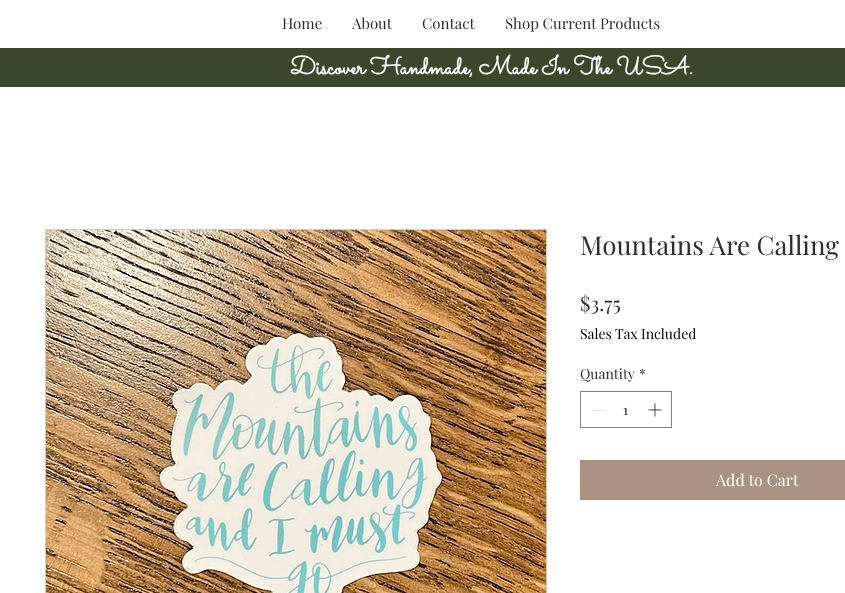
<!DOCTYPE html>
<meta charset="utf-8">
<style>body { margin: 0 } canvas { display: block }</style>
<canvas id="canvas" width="845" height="593"></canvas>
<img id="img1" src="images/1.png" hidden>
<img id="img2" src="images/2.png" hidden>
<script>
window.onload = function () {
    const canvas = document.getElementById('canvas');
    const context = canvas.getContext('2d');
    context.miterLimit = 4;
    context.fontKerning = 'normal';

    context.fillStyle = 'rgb(255, 255, 255)';
    context.fillRect(0, 0, 845, 593);
    context.fillStyle = 'rgb(61, 71, 44)';
    context.fillRect(0, 48, 845, 39);
    context.strokeStyle = 'rgb(204, 204, 204)';
    context.strokeRect(45.5, 229.5, 501, 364);
    context.drawImage(document.getElementById('img1'), 46, 230, 500, 363);
    context.strokeStyle = 'rgb(130, 130, 130)';
    context.strokeRect(580.5, 391.5, 91, 36);
    context.fillStyle = 'rgb(227, 227, 227)';
    context.fillRect(592, 410, 13, 1);
    context.drawImage(document.getElementById('img2'), 648, 403, 14, 14);
    context.fillStyle = 'rgb(170, 146, 131)';
    context.fillRect(580, 460, 265, 40);
    context.font = '15px Playfair Display';
    context.fillStyle = 'rgb(47, 46, 46)';
    context.fillText('Home', 282, 29);
    context.fillText('About', 352, 29);
    context.fillText('Contact', 422, 29);
    context.fillText('Shop Current Products', 505, 29);
    context.font = 'bold 25px Sacramento';
    context.fillStyle = 'rgb(255, 255, 255)';
    context.fillText('Discover Handmade, Made In The USA.', 290, 74);
    context.font = '26px Playfair Display';
    context.fillStyle = 'rgb(47, 46, 46)';
    context.fillText('Mountains Are Calling', 580, 255);
    context.font = '20px Playfair Display';
    context.fillText('$3.75', 580, 311);
    context.font = '14px Playfair Display';
    context.fillStyle = 'rgb(0, 0, 0)';
    context.fillText('Sales Tax Included', 580, 339);
    context.fillStyle = 'rgb(47, 46, 46)';
    context.fillText('Quantity', 580, 379);
    context.fillText('*', 639, 379);
    context.fillText('1', 623, 415);
    context.font = '16px Playfair Display';
    context.fillStyle = 'rgb(255, 255, 255)';
    context.fillText('Add to Cart', 716, 486);
};
</script>
